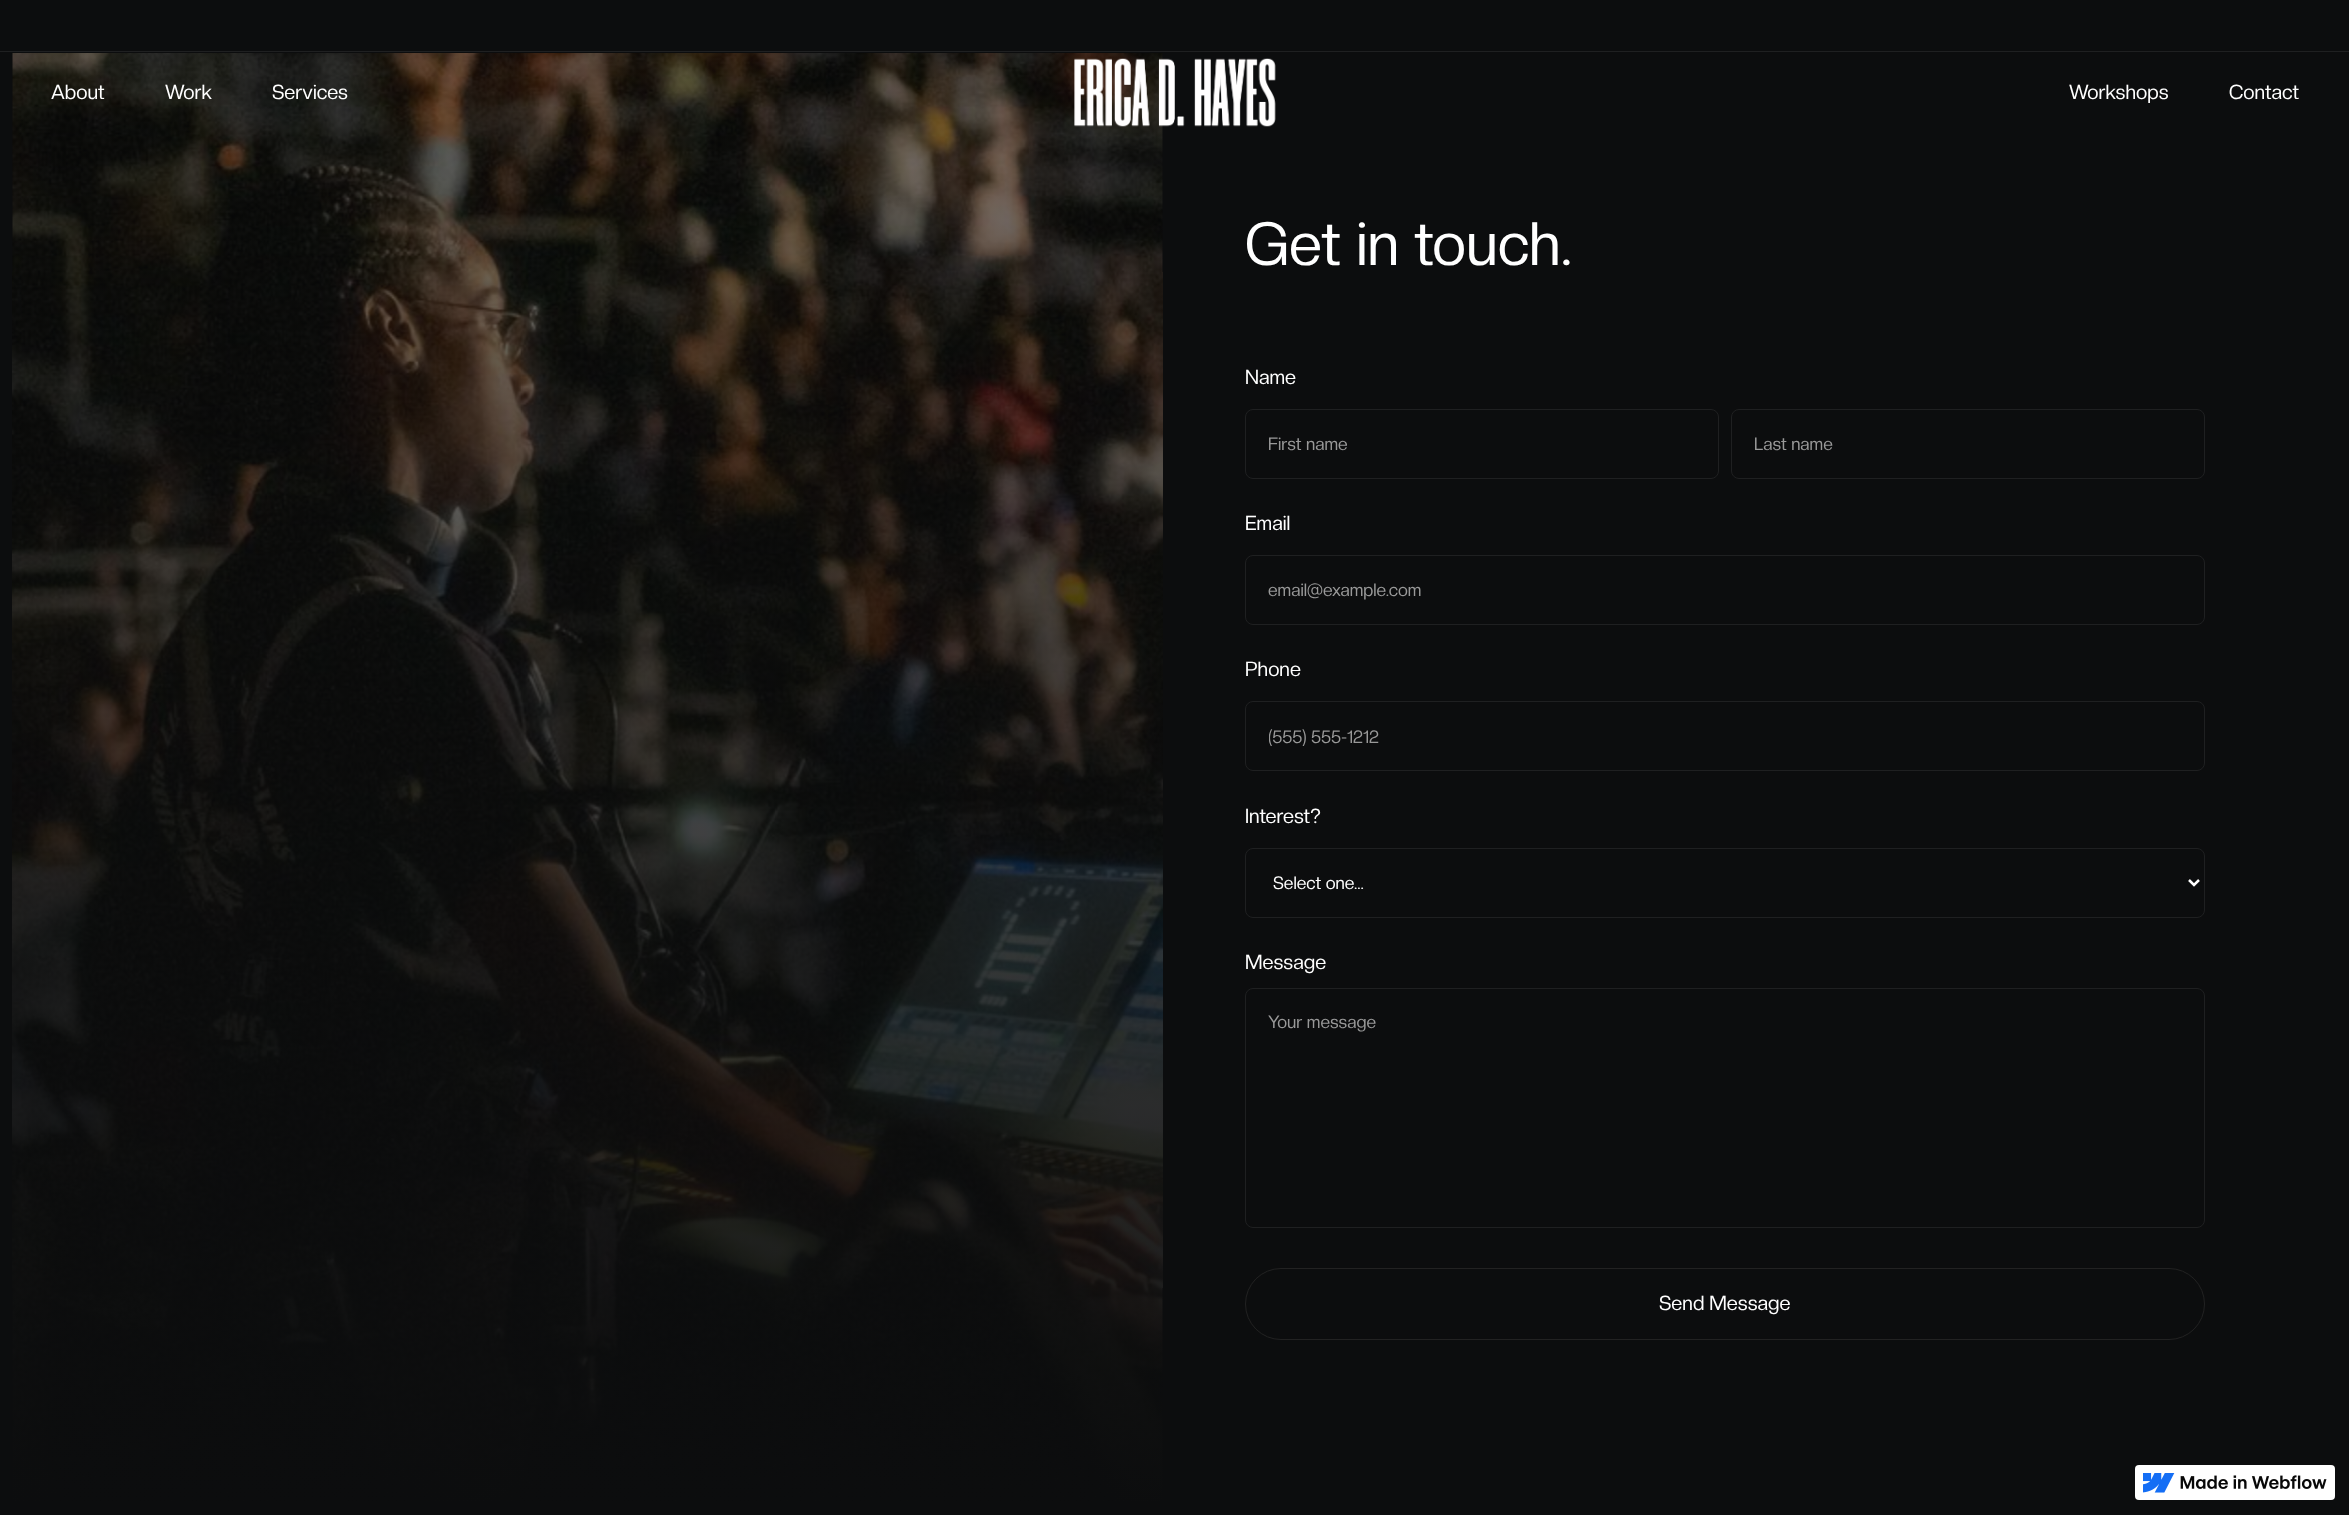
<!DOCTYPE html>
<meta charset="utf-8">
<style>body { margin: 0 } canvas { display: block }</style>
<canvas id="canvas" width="2349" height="1515"></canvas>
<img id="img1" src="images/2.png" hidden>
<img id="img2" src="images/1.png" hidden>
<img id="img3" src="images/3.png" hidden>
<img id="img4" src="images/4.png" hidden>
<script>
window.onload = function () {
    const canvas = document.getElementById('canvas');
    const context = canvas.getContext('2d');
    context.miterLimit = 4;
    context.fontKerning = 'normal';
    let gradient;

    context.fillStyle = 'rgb(12, 13, 14)';
    context.fillRect(0, 0, 2349, 1515);
    context.fillStyle = 'rgb(31, 32, 33)';
    context.fillRect(0, 51, 2349, 1);
    context.drawImage(document.getElementById('img1'), 12, 53, 1151, 1448);
    gradient = context.createLinearGradient(587, 4.7, 588, 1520);
    gradient.addColorStop(0, 'rgba(12, 12, 13, 0.53)');
    gradient.addColorStop(1, 'rgb(12, 13, 14)');
    context.fillStyle = gradient;
    context.fillRect(12, 53, 1151, 1448);
    context.drawImage(document.getElementById('img2'), 1074, 58, 202, 69);
    context.beginPath();
    context.roundRect(1245.5, 409.5, 473, 69, 7.5);
    context.strokeStyle = 'rgb(31, 32, 33)';
    context.stroke();
    context.beginPath();
    context.roundRect(1731.5, 409.5, 473, 69, 7.5);
    context.stroke();
    context.beginPath();
    context.roundRect(1245.5, 555.5, 959, 69, 7.5);
    context.stroke();
    context.beginPath();
    context.roundRect(1245.5, 701.5, 959, 69, 7.5);
    context.stroke();
    context.beginPath();
    context.roundRect(1245.5, 848.5, 959, 69, 7.5);
    context.stroke();
    context.beginPath();
    context.moveTo(2189, 880);
    context.lineTo(2194, 885);
    context.lineTo(2199, 880);
    context.strokeStyle = 'rgb(255, 255, 255)';
    context.lineWidth = 2.5;
    context.stroke();
    context.beginPath();
    context.roundRect(1245.5, 988.5, 959, 239, 7.5);
    context.strokeStyle = 'rgb(31, 32, 33)';
    context.lineWidth = 1;
    context.stroke();
    context.beginPath();
    context.roundRect(1245.5, 1268.5, 959, 71, 35.5);
    context.strokeStyle = 'rgb(34, 34, 34)';
    context.stroke();
    context.fillStyle = 'rgb(255, 255, 255)';
    context.beginPath();
    context.roundRect(2135, 1465, 200, 35, 4);
    context.fill();
    context.drawImage(document.getElementById('img3'), 2143, 1473, 32, 20);
    context.drawImage(document.getElementById('img4'), 2180, 1475, 147, 14);
    context.font = '20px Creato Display';
    context.fillText('About', 51, 99);
    context.fillText('Work', 165, 99);
    context.fillText('Services', 272, 99);
    context.fillText('Workshops', 2069, 99);
    context.fillText('Contact', 2229, 99);
    context.font = '60px Creato Display';
    context.fillText('Get in touch.', 1245, 265);
    context.font = '20px Creato Display';
    context.fillText('Name', 1245, 384);
    context.font = '17.5px Creato Display';
    context.fillStyle = 'rgb(153, 153, 153)';
    context.fillText('First name', 1268, 450);
    context.fillText('Last name', 1754, 450);
    context.font = '20px Creato Display';
    context.fillStyle = 'rgb(255, 255, 255)';
    context.fillText('Email', 1245, 530);
    context.font = '17.5px Creato Display';
    context.fillStyle = 'rgb(153, 153, 153)';
    context.fillText('email@example.com', 1268, 596);
    context.font = '20px Creato Display';
    context.fillStyle = 'rgb(255, 255, 255)';
    context.fillText('Phone', 1245, 676);
    context.save();
    context.beginPath();
    context.rect(1269, 726, 912, 20);
    context.clip();
    context.font = '17.5px Creato Display';
    context.fillStyle = 'rgb(153, 153, 153)';
    context.fillText('(555) 555-1212', 1268, 743);
    context.restore();
    context.fillText('Interest?', 1245, 823);
    context.font = '17.5px Creato Display';
    context.fillText('Select one...', 1273, 889);
    context.font = '20px Creato Display';
    context.fillText('Message', 1245, 969);
    context.font = '17.5px Creato Display';
    context.fillStyle = 'rgb(153, 153, 153)';
    context.fillText('Your message', 1268, 1028);
    context.font = '20px Creato Display';
    context.fillStyle = 'rgb(255, 255, 255)';
    context.fillText('Send Message', 1659, 1310);
};
</script>
